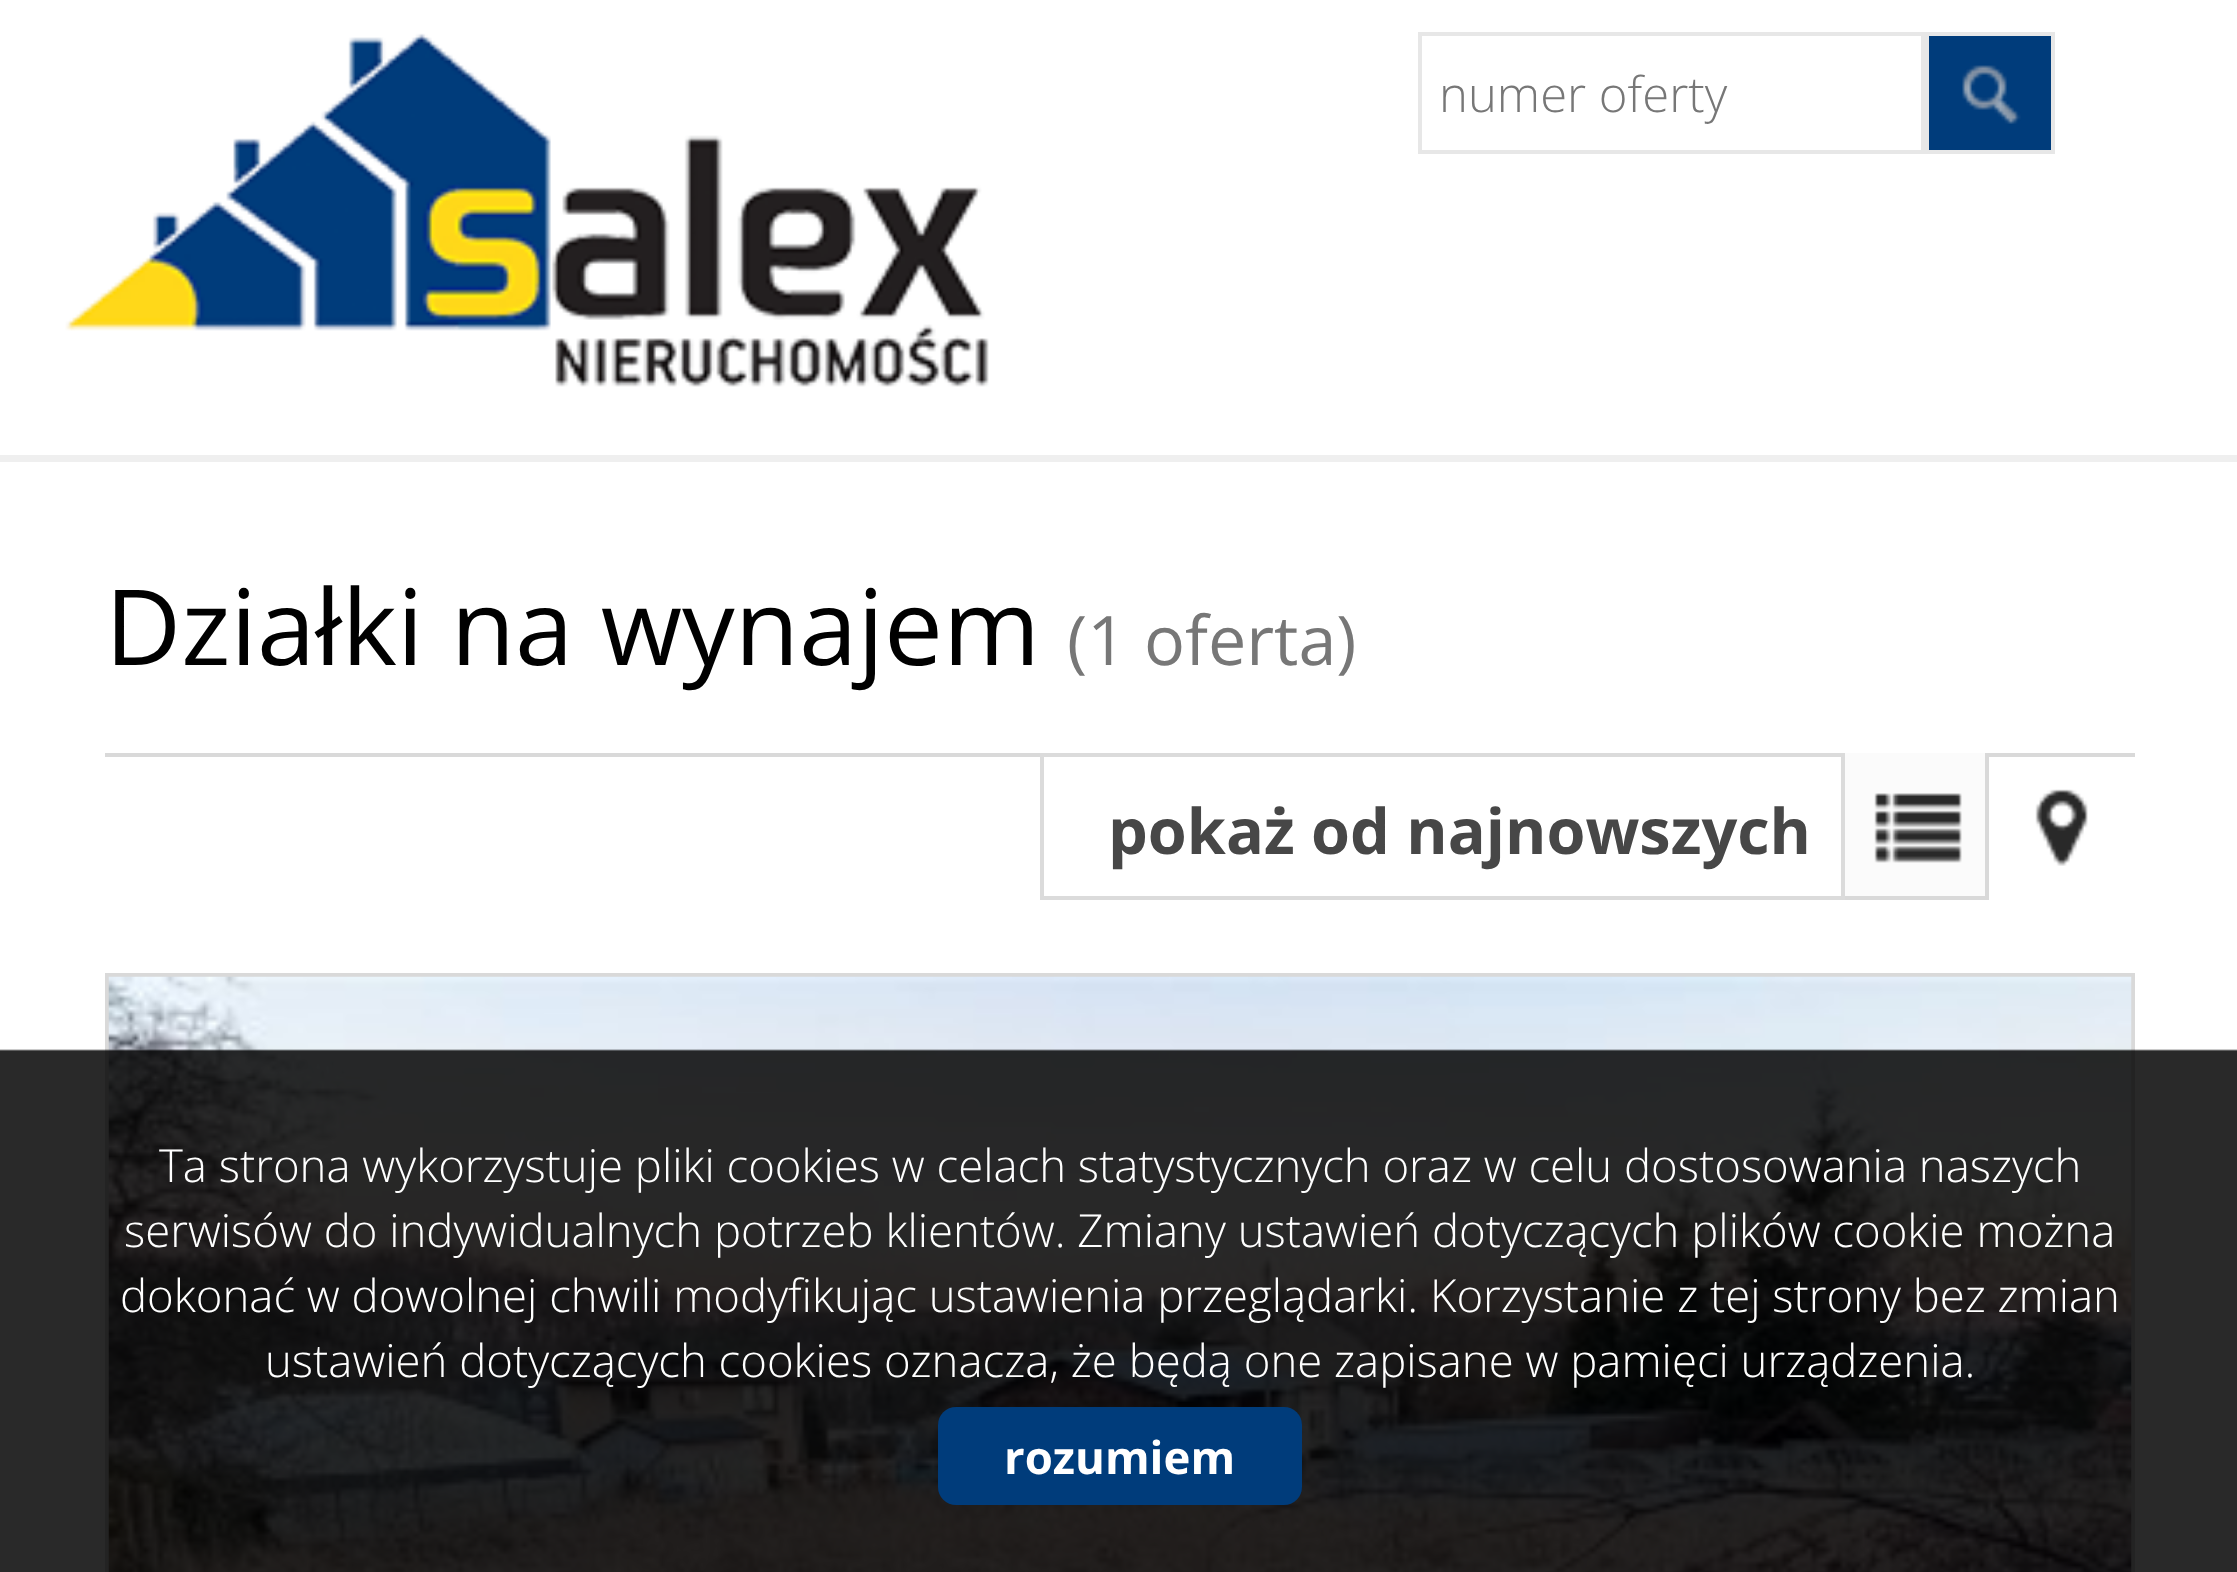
<!DOCTYPE html>
<meta charset="utf-8">
<style>body { margin: 0 } canvas { display: block }</style>
<canvas id="canvas" width="2237" height="1572"></canvas>
<img id="img1" src="images/1.png" hidden>
<img id="img2" src="images/2.png" hidden>
<img id="img3" src="images/3.png" hidden>
<img id="img4" src="images/4.png" hidden>
<img id="img5" src="images/5.png" hidden>
<img id="img6" src="images/6.png" hidden>
<script>
window.onload = function () {
    const canvas = document.getElementById('canvas');
    const context = canvas.getContext('2d');
    context.miterLimit = 4;
    context.fontKerning = 'normal';

    context.fillStyle = 'rgb(255, 255, 255)';
    context.fillRect(0, 0, 2237, 1572);
    context.fillStyle = 'rgb(239, 239, 239)';
    context.fillRect(0, 455, 2237, 7);
    context.drawImage(document.getElementById('img1'), 65, 33, 924, 354);
    context.strokeStyle = 'rgb(231, 231, 231)';
    context.lineWidth = 4;
    context.strokeRect(1420, 34, 503, 118);
    context.fillStyle = 'rgb(0, 60, 123)';
    context.fillRect(1929, 36, 122, 114);
    context.drawImage(document.getElementById('img2'), 1962, 65, 59, 59);
    context.strokeRect(1927, 34, 126, 118);
    context.fillStyle = 'rgb(217, 217, 217)';
    context.fillRect(105, 753, 2030, 4);
    context.fillRect(1985, 753, 4, 147);
    context.fillRect(1841, 896, 147, 4);
    context.strokeStyle = 'rgb(219, 219, 219)';
    context.strokeRect(1042, 755, 801, 143);
    context.fillStyle = 'rgb(251, 251, 251)';
    context.fillRect(1845, 753, 140, 143);
    context.drawImage(document.getElementById('img3'), 1874, 793, 88, 70);
    context.drawImage(document.getElementById('img4'), 2035, 789, 53, 77);
    context.strokeStyle = 'rgb(217, 217, 217)';
    context.strokeRect(107, 975, 2026, 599);
    context.drawImage(document.getElementById('img5'), 108, 976, 2024, 596);
    context.drawImage(document.getElementById('img6'), 0, 1049, 2237, 523);
    context.fillStyle = 'rgb(0, 60, 123)';
    context.beginPath();
    context.roundRect(938, 1407, 364, 98, 18);
    context.fill();
    context.font = '300 49px Open Sans';
    context.fillStyle = 'rgb(119, 119, 119)';
    context.fillText('numer oferty', 1439, 112);
    context.font = '105px Open Sans';
    context.fillStyle = 'rgb(0, 0, 0)';
    context.fillText('Działki na wynajem', 105, 665);
    context.font = '68.25px Open Sans';
    context.fillStyle = 'rgb(119, 119, 119)';
    context.fillText('(1 oferta)', 1067, 665);
    context.font = 'bold 63px Open Sans';
    context.fillStyle = 'rgb(71, 71, 71)';
    context.fillText('pokaż od najnowszych', 1108, 854);
    context.font = '300 45.5px Open Sans';
    context.fillStyle = 'rgb(255, 255, 255)';
    context.fillText('Ta strona wykorzystuje pliki cookies w celach statystycznych oraz w celu dostosowania naszych', 159, 1182);
    context.fillText('serwisów do indywidualnych potrzeb klientów. Zmiany ustawień dotyczących plików cookie można', 124, 1247);
    context.fillText('dokonać w dowolnej chwili modyfikując ustawienia przeglądarki. Korzystanie z tej strony bez zmian', 120, 1312);
    context.fillText('ustawień dotyczących cookies oznacza, że będą one zapisane w pamięci urządzenia.', 265, 1377);
    context.font = 'bold 45.5px Open Sans';
    context.fillText('rozumiem', 1004, 1474);
};
</script>
